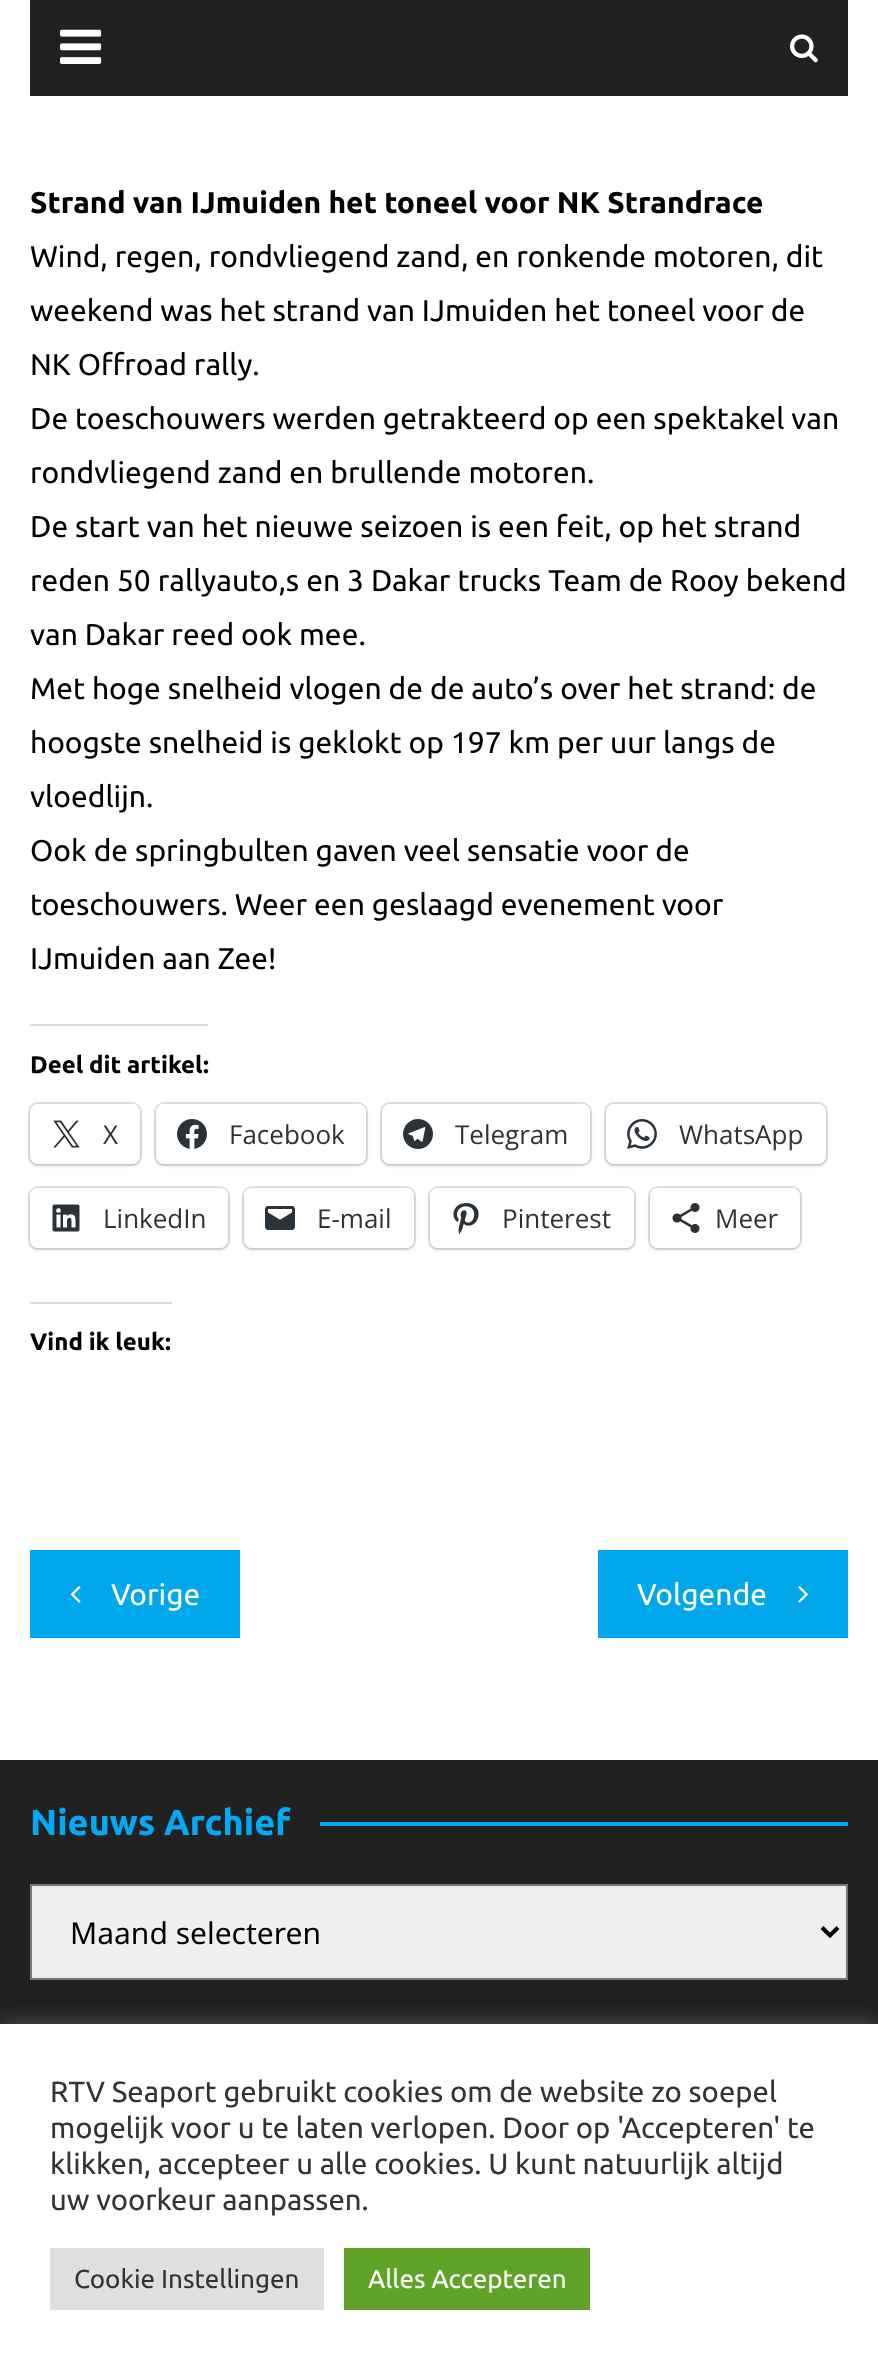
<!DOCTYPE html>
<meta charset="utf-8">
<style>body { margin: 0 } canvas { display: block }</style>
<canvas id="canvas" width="878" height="2369"></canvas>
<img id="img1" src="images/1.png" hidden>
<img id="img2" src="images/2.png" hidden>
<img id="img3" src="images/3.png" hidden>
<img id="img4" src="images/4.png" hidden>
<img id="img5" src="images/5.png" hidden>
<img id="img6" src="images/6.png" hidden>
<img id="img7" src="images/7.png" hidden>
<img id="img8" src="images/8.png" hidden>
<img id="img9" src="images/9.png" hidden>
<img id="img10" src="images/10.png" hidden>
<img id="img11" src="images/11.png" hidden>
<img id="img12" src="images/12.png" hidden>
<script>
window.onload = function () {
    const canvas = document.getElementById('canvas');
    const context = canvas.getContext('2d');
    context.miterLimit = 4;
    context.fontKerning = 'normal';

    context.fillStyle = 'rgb(255, 255, 255)';
    context.fillRect(0, 0, 878, 2369);
    context.fillStyle = 'rgb(33, 33, 33)';
    context.fillRect(30, 0, 818, 96);
    context.drawImage(document.getElementById('img1'), 60, 29, 42, 35);
    context.drawImage(document.getElementById('img2'), 790, 34, 28, 29);
    context.fillStyle = 'rgb(220, 220, 222)';
    context.fillRect(30, 1024, 178, 2);
    context.beginPath();
    context.roundRect(29, 1103, 112, 62, 9);
    context.strokeStyle = 'rgb(224, 224, 224)';
    context.lineWidth = 2;
    context.stroke();
    context.fillStyle = 'rgba(0, 0, 0, 0.12)';
    context.filter = 'blur(2px)';
    context.beginPath();
    context.roundRect(30, 1106, 110, 60, 8);
    context.fill();
    context.filter = 'none';
    context.fillStyle = 'rgb(255, 255, 255)';
    context.beginPath();
    context.roundRect(30, 1104, 110, 60, 8);
    context.fill();
    context.drawImage(document.getElementById('img3'), 53, 1120, 27, 28);
    context.beginPath();
    context.roundRect(155, 1103, 212, 62, 9);
    context.stroke();
    context.fillStyle = 'rgba(0, 0, 0, 0.12)';
    context.filter = 'blur(2px)';
    context.beginPath();
    context.roundRect(156, 1106, 210, 60, 8);
    context.fill();
    context.filter = 'none';
    context.fillStyle = 'rgb(255, 255, 255)';
    context.beginPath();
    context.roundRect(156, 1104, 210, 60, 8);
    context.fill();
    context.drawImage(document.getElementById('img4'), 177, 1119, 30, 30);
    context.beginPath();
    context.roundRect(381, 1103, 210, 62, 9);
    context.stroke();
    context.fillStyle = 'rgba(0, 0, 0, 0.12)';
    context.filter = 'blur(2px)';
    context.beginPath();
    context.roundRect(382, 1106, 208, 60, 8);
    context.fill();
    context.filter = 'none';
    context.fillStyle = 'rgb(255, 255, 255)';
    context.beginPath();
    context.roundRect(382, 1104, 208, 60, 8);
    context.fill();
    context.drawImage(document.getElementById('img5'), 403, 1119, 30, 30);
    context.beginPath();
    context.roundRect(605, 1103, 222, 62, 9);
    context.stroke();
    context.fillStyle = 'rgba(0, 0, 0, 0.12)';
    context.filter = 'blur(2px)';
    context.beginPath();
    context.roundRect(606, 1106, 220, 60, 8);
    context.fill();
    context.filter = 'none';
    context.fillStyle = 'rgb(255, 255, 255)';
    context.beginPath();
    context.roundRect(606, 1104, 220, 60, 8);
    context.fill();
    context.drawImage(document.getElementById('img6'), 627, 1119, 30, 30);
    context.beginPath();
    context.roundRect(29, 1187, 200, 62, 9);
    context.stroke();
    context.fillStyle = 'rgba(0, 0, 0, 0.12)';
    context.filter = 'blur(2px)';
    context.beginPath();
    context.roundRect(30, 1190, 198, 60, 8);
    context.fill();
    context.filter = 'none';
    context.fillStyle = 'rgb(255, 255, 255)';
    context.beginPath();
    context.roundRect(30, 1188, 198, 60, 8);
    context.fill();
    context.drawImage(document.getElementById('img7'), 52, 1204, 28, 28);
    context.beginPath();
    context.roundRect(243, 1187, 172, 62, 9);
    context.stroke();
    context.fillStyle = 'rgba(0, 0, 0, 0.12)';
    context.filter = 'blur(2px)';
    context.beginPath();
    context.roundRect(244, 1190, 170, 60, 8);
    context.fill();
    context.filter = 'none';
    context.fillStyle = 'rgb(255, 255, 255)';
    context.beginPath();
    context.roundRect(244, 1188, 170, 60, 8);
    context.fill();
    context.drawImage(document.getElementById('img8'), 265, 1206, 30, 24);
    context.beginPath();
    context.roundRect(429, 1187, 206, 62, 9);
    context.stroke();
    context.fillStyle = 'rgba(0, 0, 0, 0.12)';
    context.filter = 'blur(2px)';
    context.beginPath();
    context.roundRect(430, 1190, 204, 60, 8);
    context.fill();
    context.filter = 'none';
    context.fillStyle = 'rgb(255, 255, 255)';
    context.beginPath();
    context.roundRect(430, 1188, 204, 60, 8);
    context.fill();
    context.drawImage(document.getElementById('img9'), 453, 1203, 26, 32);
    context.beginPath();
    context.roundRect(649, 1187, 152, 62, 9);
    context.stroke();
    context.fillStyle = 'rgba(0, 0, 0, 0.12)';
    context.filter = 'blur(2px)';
    context.beginPath();
    context.roundRect(650, 1190, 150, 60, 8);
    context.fill();
    context.filter = 'none';
    context.fillStyle = 'rgb(255, 255, 255)';
    context.beginPath();
    context.roundRect(650, 1188, 150, 60, 8);
    context.fill();
    context.drawImage(document.getElementById('img10'), 672, 1203, 28, 30);
    context.fillStyle = 'rgb(220, 220, 222)';
    context.fillRect(30, 1302, 142, 2);
    context.fillStyle = 'rgb(0, 168, 235)';
    context.fillRect(30, 1550, 210, 88);
    context.drawImage(document.getElementById('img11'), 70, 1586, 11, 17);
    context.fillRect(598, 1550, 250, 88);
    context.drawImage(document.getElementById('img12'), 798, 1586, 10, 17);
    context.fillStyle = 'rgb(33, 33, 33)';
    context.fillRect(0, 1760, 878, 264);
    context.fillStyle = 'rgb(0, 168, 235)';
    context.fillRect(320, 1822, 528, 4);
    context.fillStyle = 'rgb(239, 239, 239)';
    context.beginPath();
    context.rect(31, 1885, 816, 94);
    context.fill();
    context.strokeStyle = 'rgb(119, 119, 119)';
    context.stroke();
    context.beginPath();
    context.moveTo(822, 1927.5);
    context.lineTo(830, 1935.5);
    context.lineTo(838, 1927.5);
    context.strokeStyle = 'rgb(0, 0, 0)';
    context.lineWidth = 4;
    context.stroke();
    context.fillStyle = 'rgba(172, 171, 171, 0.3)';
    context.filter = 'blur(10px)';
    context.beginPath();
    context.rect(0, 2022, 878, 346);
    context.fill();
    context.filter = 'none';
    context.fillStyle = 'rgb(255, 255, 255)';
    context.fillRect(0, 2024, 878, 345);
    context.fillStyle = 'rgb(222, 223, 224)';
    context.fillRect(50, 2248, 274, 62);
    context.fillStyle = 'rgb(97, 162, 41)';
    context.fillRect(344, 2248, 246, 62);
    context.font = 'bold 30px Ubuntu';
    context.fillStyle = 'rgb(1, 1, 1)';
    context.fillText('Strand van IJmuiden het toneel voor NK Strandrace', 30, 213);
    context.font = '30px Ubuntu';
    context.fillText('Wind, regen, rondvliegend zand, en ronkende motoren, dit', 30, 267);
    context.fillText('weekend was het strand van IJmuiden het toneel voor de', 30, 321);
    context.fillText('NK Offroad rally.', 30, 375);
    context.fillText('De toeschouwers werden getrakteerd op een spektakel van', 30, 429);
    context.fillText('rondvliegend zand en brullende motoren.', 30, 483);
    context.fillText('De start van het nieuwe seizoen is een feit, op het strand', 30, 537);
    context.fillText('reden 50 rallyauto,s en 3 Dakar trucks Team de Rooy bekend', 30, 591);
    context.fillText('van Dakar reed ook mee.', 30, 645);
    context.fillText('Met hoge snelheid vlogen de de auto’s over het strand: de', 30, 699);
    context.fillText('hoogste snelheid is geklokt op 197 km per uur langs de', 30, 753);
    context.fillText('vloedlijn.', 30, 807);
    context.fillText('Ook de springbulten gaven veel sensatie voor de', 30, 861);
    context.fillText('toeschouwers. Weer een geslaagd evenement voor', 30, 915);
    context.fillText('IJmuiden aan Zee!', 30, 969);
    context.font = 'bold 24px Ubuntu';
    context.fillText('Deel dit artikel:', 30, 1073);
    context.font = '26px Open Sans';
    context.fillStyle = 'rgb(44, 51, 56)';
    context.fillText('X', 103, 1144);
    context.fillText('Facebook', 229, 1144);
    context.fillText('Telegram', 455, 1144);
    context.fillText('WhatsApp', 679, 1144);
    context.fillText('LinkedIn', 103, 1228);
    context.fillText('E-mail', 317, 1228);
    context.fillText('Pinterest', 502, 1228);
    context.fillText('Meer', 715, 1228);
    context.font = 'bold 24px Ubuntu';
    context.fillStyle = 'rgb(1, 1, 1)';
    context.fillText('Vind ik leuk:', 30, 1350);
    context.font = '30px Ubuntu';
    context.fillStyle = 'rgb(255, 255, 255)';
    context.fillText('Vorige', 111, 1605);
    context.fillText('Volgende', 637, 1605);
    context.font = 'bold 36px Ubuntu';
    context.fillStyle = 'rgb(3, 169, 244)';
    context.fillText('Nieuws Archief', 30, 1835);
    context.font = '30px Noto Sans';
    context.fillStyle = 'rgb(1, 1, 1)';
    context.fillText('Maand selecteren', 70, 1944);
    context.font = '29.3px Ubuntu';
    context.fillStyle = 'rgb(51, 51, 51)';
    context.fillText('RTV Seaport gebruikt cookies om de website zo soepel', 50, 2102);
    context.fillText('mogelijk voor u te laten verlopen. Door op \'Accepteren\' te', 50, 2138);
    context.fillText('klikken, accepteer u alle cookies. U kunt natuurlijk altijd', 50, 2174);
    context.fillText('uw voorkeur aanpassen.', 50, 2210);
    context.font = '26px Ubuntu';
    context.fillText('Cookie Instellingen', 74, 2288);
    context.fillStyle = 'rgb(255, 255, 255)';
    context.fillText('Alles Accepteren', 368, 2288);
};
</script>
